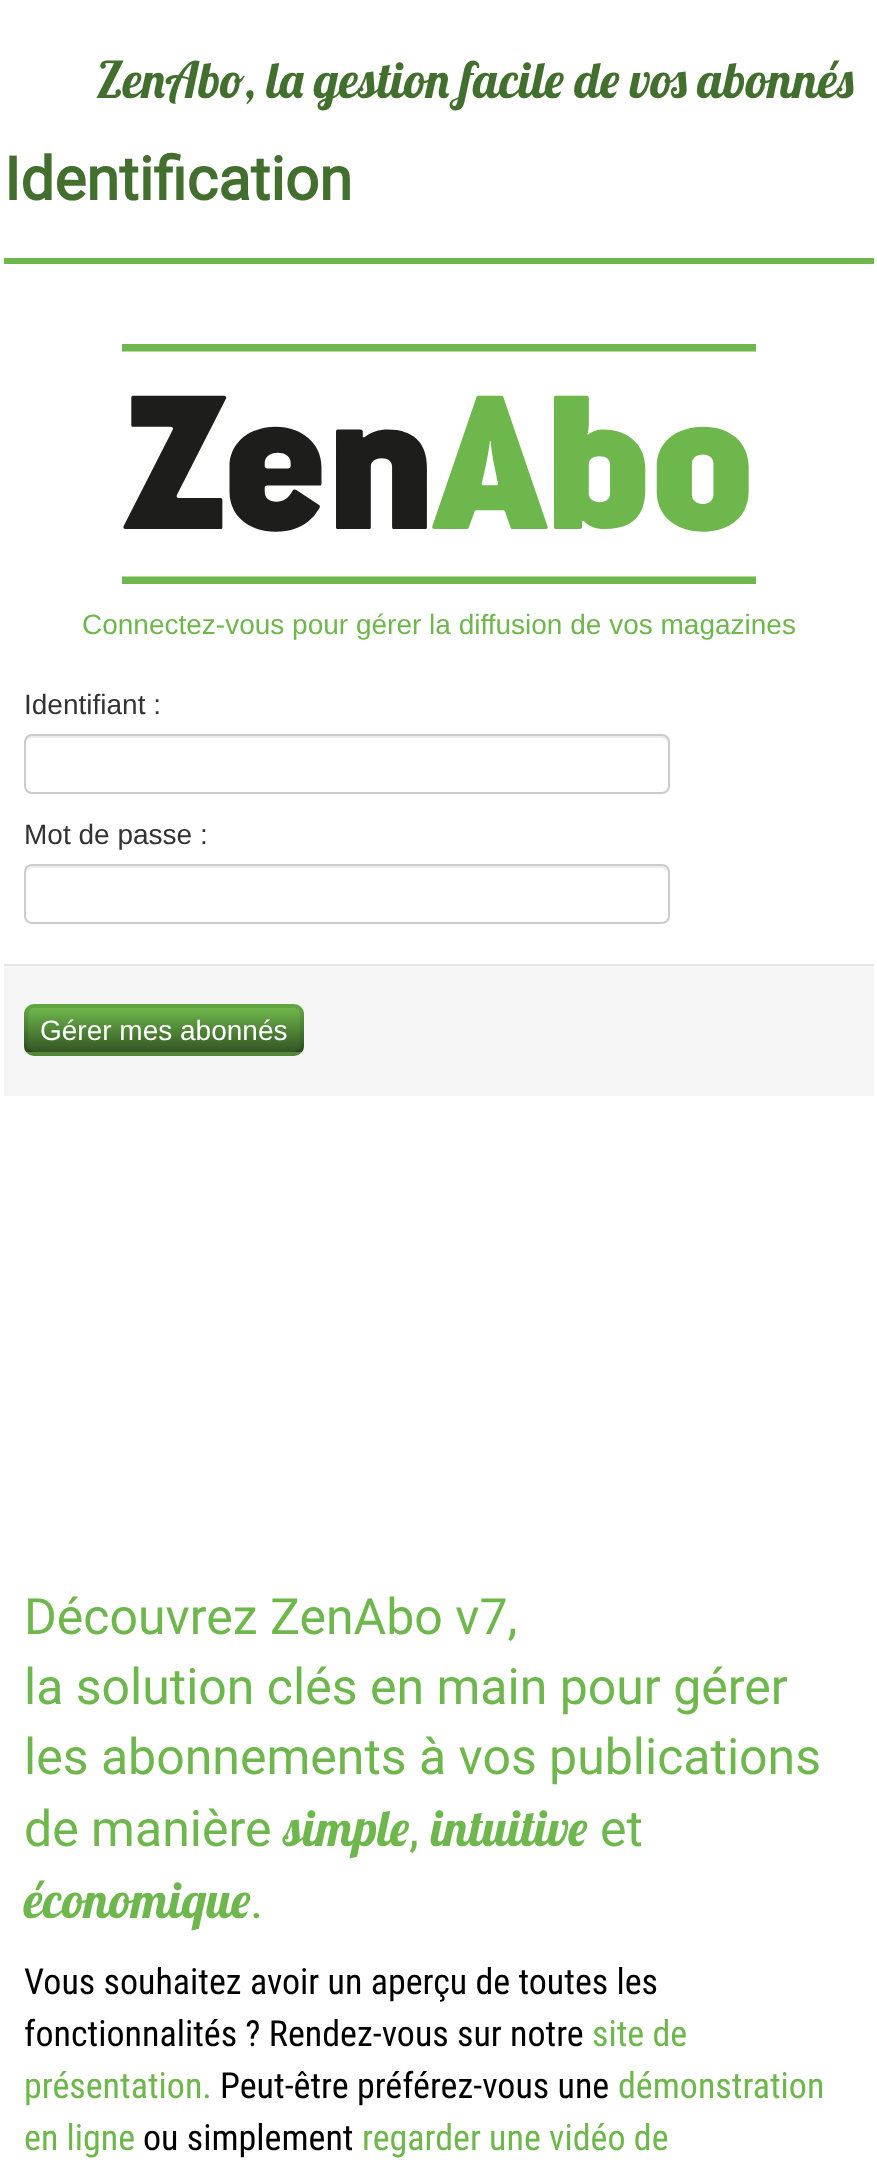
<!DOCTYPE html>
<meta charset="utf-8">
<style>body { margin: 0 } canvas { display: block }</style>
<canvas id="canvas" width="877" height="2184"></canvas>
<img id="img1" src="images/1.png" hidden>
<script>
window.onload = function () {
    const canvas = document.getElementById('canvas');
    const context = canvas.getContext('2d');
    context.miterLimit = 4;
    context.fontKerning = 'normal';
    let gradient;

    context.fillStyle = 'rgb(255, 255, 255)';
    context.fillRect(0, 0, 877, 2184);
    context.fillStyle = 'rgb(110, 183, 76)';
    context.fillRect(4, 258, 870, 6);
    context.drawImage(document.getElementById('img1'), 122, 344, 634, 240);
    context.fillStyle = 'rgb(236, 236, 236)';
    context.beginPath();
    context.moveTo(32, 738);
    context.lineTo(662, 738);
    context.bezierCurveTo(665, 738, 668, 741, 668, 744);
    context.lineTo(668, 742);
    context.bezierCurveTo(668, 739, 665, 736, 662, 736);
    context.lineTo(32, 736);
    context.bezierCurveTo(29, 736, 26, 739, 26, 742);
    context.lineTo(26, 744);
    context.bezierCurveTo(26, 741, 29, 738, 32, 738);
    context.closePath();
    context.fill();
    context.beginPath();
    context.roundRect(25, 735, 644, 58, 7);
    context.strokeStyle = 'rgb(204, 204, 204)';
    context.lineWidth = 2;
    context.stroke();
    context.beginPath();
    context.moveTo(32, 868);
    context.lineTo(662, 868);
    context.bezierCurveTo(665, 868, 668, 871, 668, 874);
    context.lineTo(668, 872);
    context.bezierCurveTo(668, 869, 665, 866, 662, 866);
    context.lineTo(32, 866);
    context.bezierCurveTo(29, 866, 26, 869, 26, 872);
    context.lineTo(26, 874);
    context.bezierCurveTo(26, 871, 29, 868, 32, 868);
    context.closePath();
    context.fill();
    context.beginPath();
    context.roundRect(25, 865, 644, 58, 7);
    context.stroke();
    context.fillStyle = 'rgb(245, 245, 245)';
    context.fillRect(4, 966, 870, 130);
    context.fillStyle = 'rgb(229, 229, 229)';
    context.fillRect(4, 964, 870, 2);
    context.fillStyle = 'rgb(110, 183, 76)';
    context.beginPath();
    context.roundRect(24, 1004, 280, 52, 10);
    context.fill();
    context.save();
    context.beginPath();
    context.roundRect(24, 1004, 280, 52, 10);
    context.clip();
    gradient = context.createLinearGradient(164, 1008, 164, 1052);
    gradient.addColorStop(0, 'rgb(110, 183, 76)');
    gradient.addColorStop(1, 'rgb(51, 84, 35)');
    context.fillStyle = gradient;
    context.fillRect(24, 1008, 280, 44);
    context.restore();
    context.beginPath();
    context.moveTo(299.5, 1051.5);
    context.bezierCurveTo(298, 1053, 296, 1054, 294, 1054);
    context.lineTo(34, 1054);
    context.bezierCurveTo(32, 1054, 30, 1053, 28.5, 1051.5);
    context.strokeStyle = 'rgba(0, 0, 0, 0.25)';
    context.lineWidth = 4;
    context.stroke();
    context.beginPath();
    context.moveTo(28.5, 1051.5);
    context.bezierCurveTo(27, 1050, 26, 1048, 26, 1046);
    context.lineTo(26, 1014);
    context.bezierCurveTo(26, 1012, 27, 1010, 28.5, 1008.5);
    context.bezierCurveTo(30, 1007, 32, 1006, 34, 1006);
    context.lineTo(294, 1006);
    context.bezierCurveTo(296, 1006, 298, 1007, 299.5, 1008.5);
    context.bezierCurveTo(301, 1010, 302, 1012, 302, 1014);
    context.lineTo(302, 1046);
    context.bezierCurveTo(302, 1048, 301, 1050, 299.5, 1051.5);
    context.strokeStyle = 'rgba(0, 0, 0, 0.1)';
    context.stroke();
    context.font = '50px Lobster';
    context.fillStyle = 'rgb(67, 111, 46)';
    context.fillText('ZenAbo, la gestion facile de vos abonnés', 96, 98);
    context.font = 'bold 60px Roboto';
    context.fillText('Identification', 4, 200);
    context.font = '28px Liberation Sans';
    context.fillStyle = 'rgb(110, 183, 76)';
    context.fillText('Connectez-vous pour gérer la diffusion de vos magazines', 82, 634);
    context.fillStyle = 'rgb(51, 51, 51)';
    context.fillText('Identifiant :', 24, 714);
    context.fillText('Mot de passe :', 24, 844);
    context.fillStyle = 'rgb(255, 255, 255)';
    context.fillText('Gérer mes abonnés', 40, 1040);
    context.font = '50px Roboto';
    context.fillStyle = 'rgb(110, 183, 76)';
    context.fillText('Découvrez ZenAbo v7,', 24, 1634);
    context.fillText('la solution clés en main pour gérer', 24, 1704);
    context.fillText('les abonnements à vos publications', 24, 1774);
    context.fillText('de manière', 24, 1846);
    context.font = '50px Lobster';
    context.fillText('simple', 284, 1846);
    context.font = '50px Roboto';
    context.fillText(',', 409, 1846);
    context.font = '50px Lobster';
    context.fillText('intuitive', 431, 1846);
    context.font = '50px Roboto';
    context.fillText('et', 600, 1846);
    context.font = '50px Lobster';
    context.fillText('économique', 24, 1918);
    context.font = '50px Roboto';
    context.fillText('.', 250, 1918);
    context.font = '36px Roboto Condensed';
    context.fillStyle = 'rgb(0, 0, 0)';
    context.fillText('Vous souhaitez avoir un aperçu de toutes les', 24, 1994);
    context.fillText('fonctionnalités ? Rendez-vous sur notre', 24, 2046);
    context.fillStyle = 'rgb(110, 183, 76)';
    context.fillText('site de', 592, 2046);
    context.fillText('présentation.', 24, 2098);
    context.fillStyle = 'rgb(0, 0, 0)';
    context.fillText('Peut-être préférez-vous une', 220, 2098);
    context.fillStyle = 'rgb(110, 183, 76)';
    context.fillText('démonstration', 618, 2098);
    context.fillText('en ligne', 24, 2150);
    context.fillStyle = 'rgb(0, 0, 0)';
    context.fillText('ou simplement', 143, 2150);
    context.fillStyle = 'rgb(110, 183, 76)';
    context.fillText('regarder une vidéo de', 362, 2150);
};
</script>
